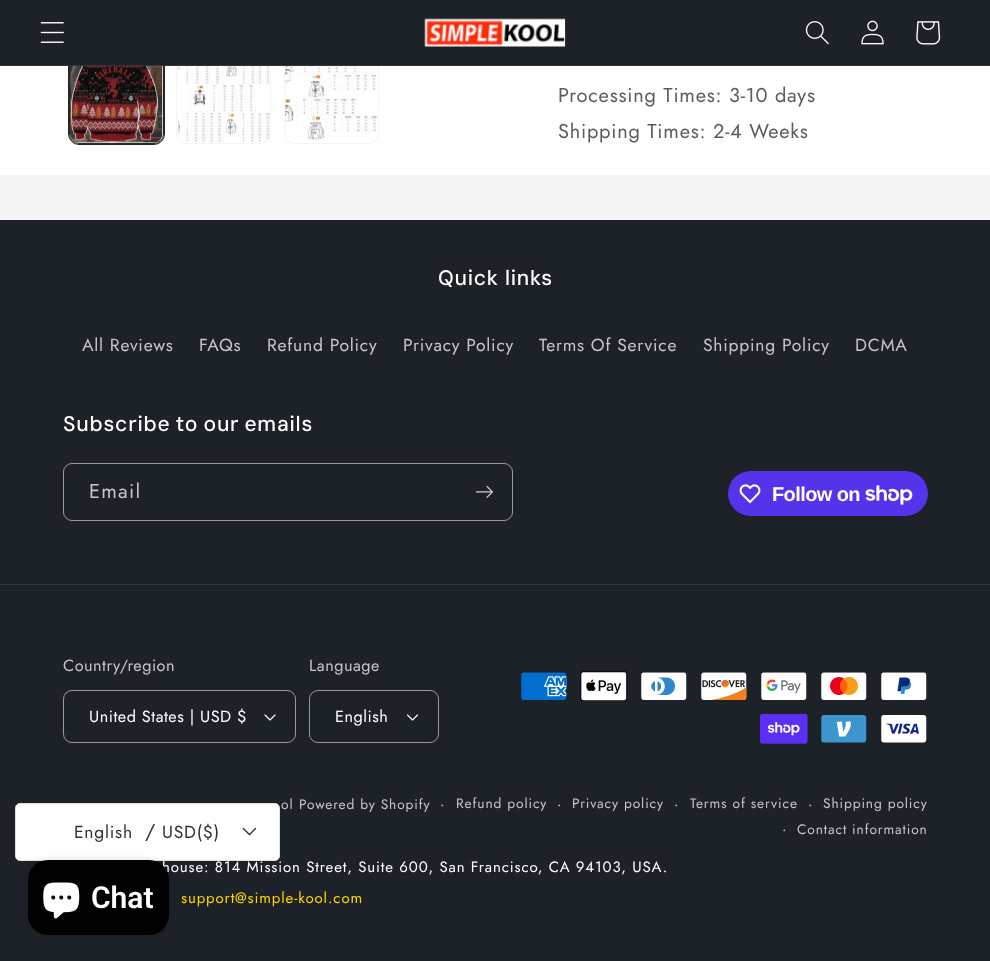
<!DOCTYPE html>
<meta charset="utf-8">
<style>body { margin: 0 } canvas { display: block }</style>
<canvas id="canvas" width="990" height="961"></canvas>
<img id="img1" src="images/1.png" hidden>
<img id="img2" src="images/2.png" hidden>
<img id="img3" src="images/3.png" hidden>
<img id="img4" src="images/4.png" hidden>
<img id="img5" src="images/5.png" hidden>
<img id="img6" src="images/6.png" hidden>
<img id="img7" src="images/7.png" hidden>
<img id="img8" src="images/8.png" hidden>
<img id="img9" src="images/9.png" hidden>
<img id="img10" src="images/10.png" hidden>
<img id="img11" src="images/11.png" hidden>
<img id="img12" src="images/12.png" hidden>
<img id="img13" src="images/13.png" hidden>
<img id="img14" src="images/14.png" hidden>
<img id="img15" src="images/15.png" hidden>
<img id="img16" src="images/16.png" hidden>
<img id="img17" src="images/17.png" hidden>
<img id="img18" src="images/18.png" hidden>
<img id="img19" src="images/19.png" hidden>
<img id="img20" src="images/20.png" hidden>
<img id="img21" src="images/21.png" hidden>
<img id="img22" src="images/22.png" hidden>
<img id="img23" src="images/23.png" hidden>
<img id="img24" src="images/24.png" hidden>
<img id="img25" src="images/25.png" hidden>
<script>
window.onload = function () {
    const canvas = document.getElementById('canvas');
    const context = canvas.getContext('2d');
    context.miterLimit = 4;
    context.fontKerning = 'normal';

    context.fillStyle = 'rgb(244, 244, 244)';
    context.fillRect(0, 0, 990, 961);
    context.fillStyle = 'rgb(255, 255, 255)';
    context.fillRect(0, 66, 990, 109);
    context.beginPath();
    context.roundRect(68.5, 48.5, 96, 96, 10.5);
    context.strokeStyle = 'rgb(38, 38, 38)';
    context.stroke();
    context.beginPath();
    context.roundRect(69.5, 49.5, 94, 94, 9.5);
    context.stroke();
    context.beginPath();
    context.roundRect(176.5, 49.5, 94, 94, 9.5);
    context.strokeStyle = 'rgb(244, 244, 244)';
    context.stroke();
    context.beginPath();
    context.roundRect(284.5, 49.5, 94, 94, 9.5);
    context.stroke();
    context.fillStyle = 'rgb(28, 34, 40)';
    context.fillRect(0, 0, 990, 65);
    context.fillStyle = 'rgb(46, 52, 57)';
    context.fillRect(0, 65, 990, 1);
    context.drawImage(document.getElementById('img1'), 40, 22, 24, 21);
    context.drawImage(document.getElementById('img2'), 424, 18, 142, 29);
    context.drawImage(document.getElementById('img3'), 805, 21, 24, 24);
    context.drawImage(document.getElementById('img4'), 861, 20, 23, 25);
    context.drawImage(document.getElementById('img5'), 916, 21, 25, 24);
    context.drawImage(document.getElementById('img6'), 70, 66, 93, 78);
    context.drawImage(document.getElementById('img7'), 177, 66, 93, 77);
    context.drawImage(document.getElementById('img8'), 285, 66, 92, 75);
    context.fillStyle = 'rgb(28, 34, 40)';
    context.fillRect(0, 220, 990, 741);
    context.beginPath();
    context.roundRect(63.5, 463.5, 449, 57, 8.5);
    context.strokeStyle = 'rgb(153, 156, 158)';
    context.stroke();
    context.drawImage(document.getElementById('img9'), 475, 485, 18, 13);
    context.fillStyle = 'rgb(84, 51, 235)';
    context.beginPath();
    context.roundRect(728, 471, 200, 45, 22.5);
    context.fill();
    context.drawImage(document.getElementById('img10'), 739, 484, 22, 20);
    context.drawImage(document.getElementById('img11'), 865, 485, 48, 20);
    context.fillStyle = 'rgb(46, 52, 57)';
    context.fillRect(0, 584, 990, 1);
    context.drawImage(document.getElementById('img12'), 264, 714, 12, 7);
    context.beginPath();
    context.roundRect(63.5, 690.5, 232, 52, 8.5);
    context.stroke();
    context.drawImage(document.getElementById('img13'), 407, 714, 11, 7);
    context.beginPath();
    context.roundRect(309.5, 690.5, 129, 52, 8.5);
    context.stroke();
    context.drawImage(document.getElementById('img14'), 521, 672, 46, 28);
    context.drawImage(document.getElementById('img15'), 580, 671, 48, 30);
    context.drawImage(document.getElementById('img16'), 641, 672, 46, 28);
    context.drawImage(document.getElementById('img17'), 701, 672, 46, 28);
    context.drawImage(document.getElementById('img18'), 761, 672, 46, 28);
    context.drawImage(document.getElementById('img19'), 821, 672, 46, 28);
    context.drawImage(document.getElementById('img20'), 881, 672, 46, 28);
    context.drawImage(document.getElementById('img21'), 760, 714, 48, 30);
    context.drawImage(document.getElementById('img22'), 821, 715, 46, 28);
    context.drawImage(document.getElementById('img23'), 881, 715, 46, 28);
    context.fillStyle = 'rgb(255, 255, 255)';
    context.beginPath();
    context.roundRect(15.5, 803.5, 264, 57, 4.5);
    context.fill();
    context.strokeStyle = 'rgb(224, 224, 224)';
    context.stroke();
    context.drawImage(document.getElementById('img24'), 242, 827, 15, 9);
    context.fillStyle = 'rgba(0, 0, 0, 0.15)';
    context.filter = 'blur(3px)';
    context.beginPath();
    context.roundRect(28, 860, 141, 75, 20);
    context.fill();
    context.filter = 'none';
    context.letterSpacing = '0.75px';
    context.font = '20px Jost';
    context.fillStyle = 'rgb(92, 92, 92)';
    context.fillText('Processing Times: 3-10 days', 558, 102);
    context.fillText('Shipping Times: 2-4 Weeks', 558, 138);
    context.font = '500 21px DM Sans';
    context.fillStyle = 'rgb(255, 255, 255)';
    context.fillText('Quick links', 438, 285);
    context.font = '17.5px Jost';
    context.fillStyle = 'rgb(198, 200, 201)';
    context.fillText('All Reviews', 82, 351);
    context.fillText('FAQs', 199, 351);
    context.fillText('Refund Policy', 267, 351);
    context.fillText('Privacy Policy', 403, 351);
    context.fillText('Terms Of Service', 539, 351);
    context.fillText('Shipping Policy', 703, 351);
    context.fillText('DCMA', 855, 351);
    context.wordSpacing = '-1px';
    context.font = '500 21px DM Sans';
    context.fillStyle = 'rgb(255, 255, 255)';
    context.fillText('Subscribe to our emails', 63, 431);
    context.letterSpacing = '1.25px';
    context.wordSpacing = '0px';
    context.font = '20px Jost';
    context.fillStyle = 'rgb(198, 200, 201)';
    context.fillText('Email', 89, 498);
    context.letterSpacing = '-0.6px';
    context.font = 'bold 20px Liberation Sans';
    context.fillStyle = 'rgb(255, 255, 255)';
    context.fillText('Follow on', 772, 501);
    context.letterSpacing = '0.5px';
    context.font = '16.25px Jost';
    context.fillStyle = 'rgb(198, 200, 201)';
    context.fillText('Country/region', 63, 671);
    context.fillStyle = 'rgb(255, 255, 255)';
    context.fillText('United States | USD $', 89, 722);
    context.fillStyle = 'rgb(198, 200, 201)';
    context.fillText('Language', 309, 671);
    context.fillStyle = 'rgb(255, 255, 255)';
    context.fillText('English', 335, 722);
    context.letterSpacing = '0.88px';
    context.font = '13.75px Jost';
    context.fillStyle = 'rgb(198, 200, 201)';
    context.fillText('ol', 281, 809);
    context.fillText('Powered by Shopify', 299, 809);
    context.font = '15px Jost';
    context.fillText('·', 440, 809);
    context.font = '13.75px Jost';
    context.fillText('Refund policy', 456, 808);
    context.font = '15px Jost';
    context.fillText('·', 557, 809);
    context.font = '13.75px Jost';
    context.fillText('Privacy policy', 572, 808);
    context.font = '15px Jost';
    context.fillText('·', 674, 809);
    context.font = '13.75px Jost';
    context.fillText('Terms of service', 690, 808);
    context.font = '15px Jost';
    context.fillText('·', 808, 809);
    context.font = '13.75px Jost';
    context.fillText('Shipping policy', 823, 808);
    context.font = '15px Jost';
    context.fillText('·', 782, 834);
    context.font = '13.75px Jost';
    context.fillText('Contact information', 797, 834);
    context.font = '15px Jost';
    context.fillStyle = 'rgb(255, 255, 255)';
    context.fillText('house: 814 Mission Street, Suite 600, San Francisco, CA 94103, USA.', 162, 872);
    context.fillStyle = 'rgb(255, 215, 0)';
    context.fillText('support@simple-kool.com', 181, 903);
    context.letterSpacing = '0.75px';
    context.font = '17.5px Jost';
    context.fillStyle = 'rgb(48, 48, 48)';
    context.fillText('English', 74, 838);
    context.font = '20px Jost';
    context.fillText('/', 145, 838);
    context.font = '17.5px Jost';
    context.fillText('USD($)', 162, 838);
    context.fillStyle = 'rgb(0, 0, 0)';
    context.beginPath();
    context.roundRect(28, 860, 141, 75, 20);
    context.fill();
    context.drawImage(document.getElementById('img25'), 43, 882, 37, 37);
    context.letterSpacing = '0px';
    context.font = '600 30px Roboto';
    context.fillStyle = 'rgb(255, 255, 255)';
    context.fillText('Chat', 91, 908);
};
</script>
